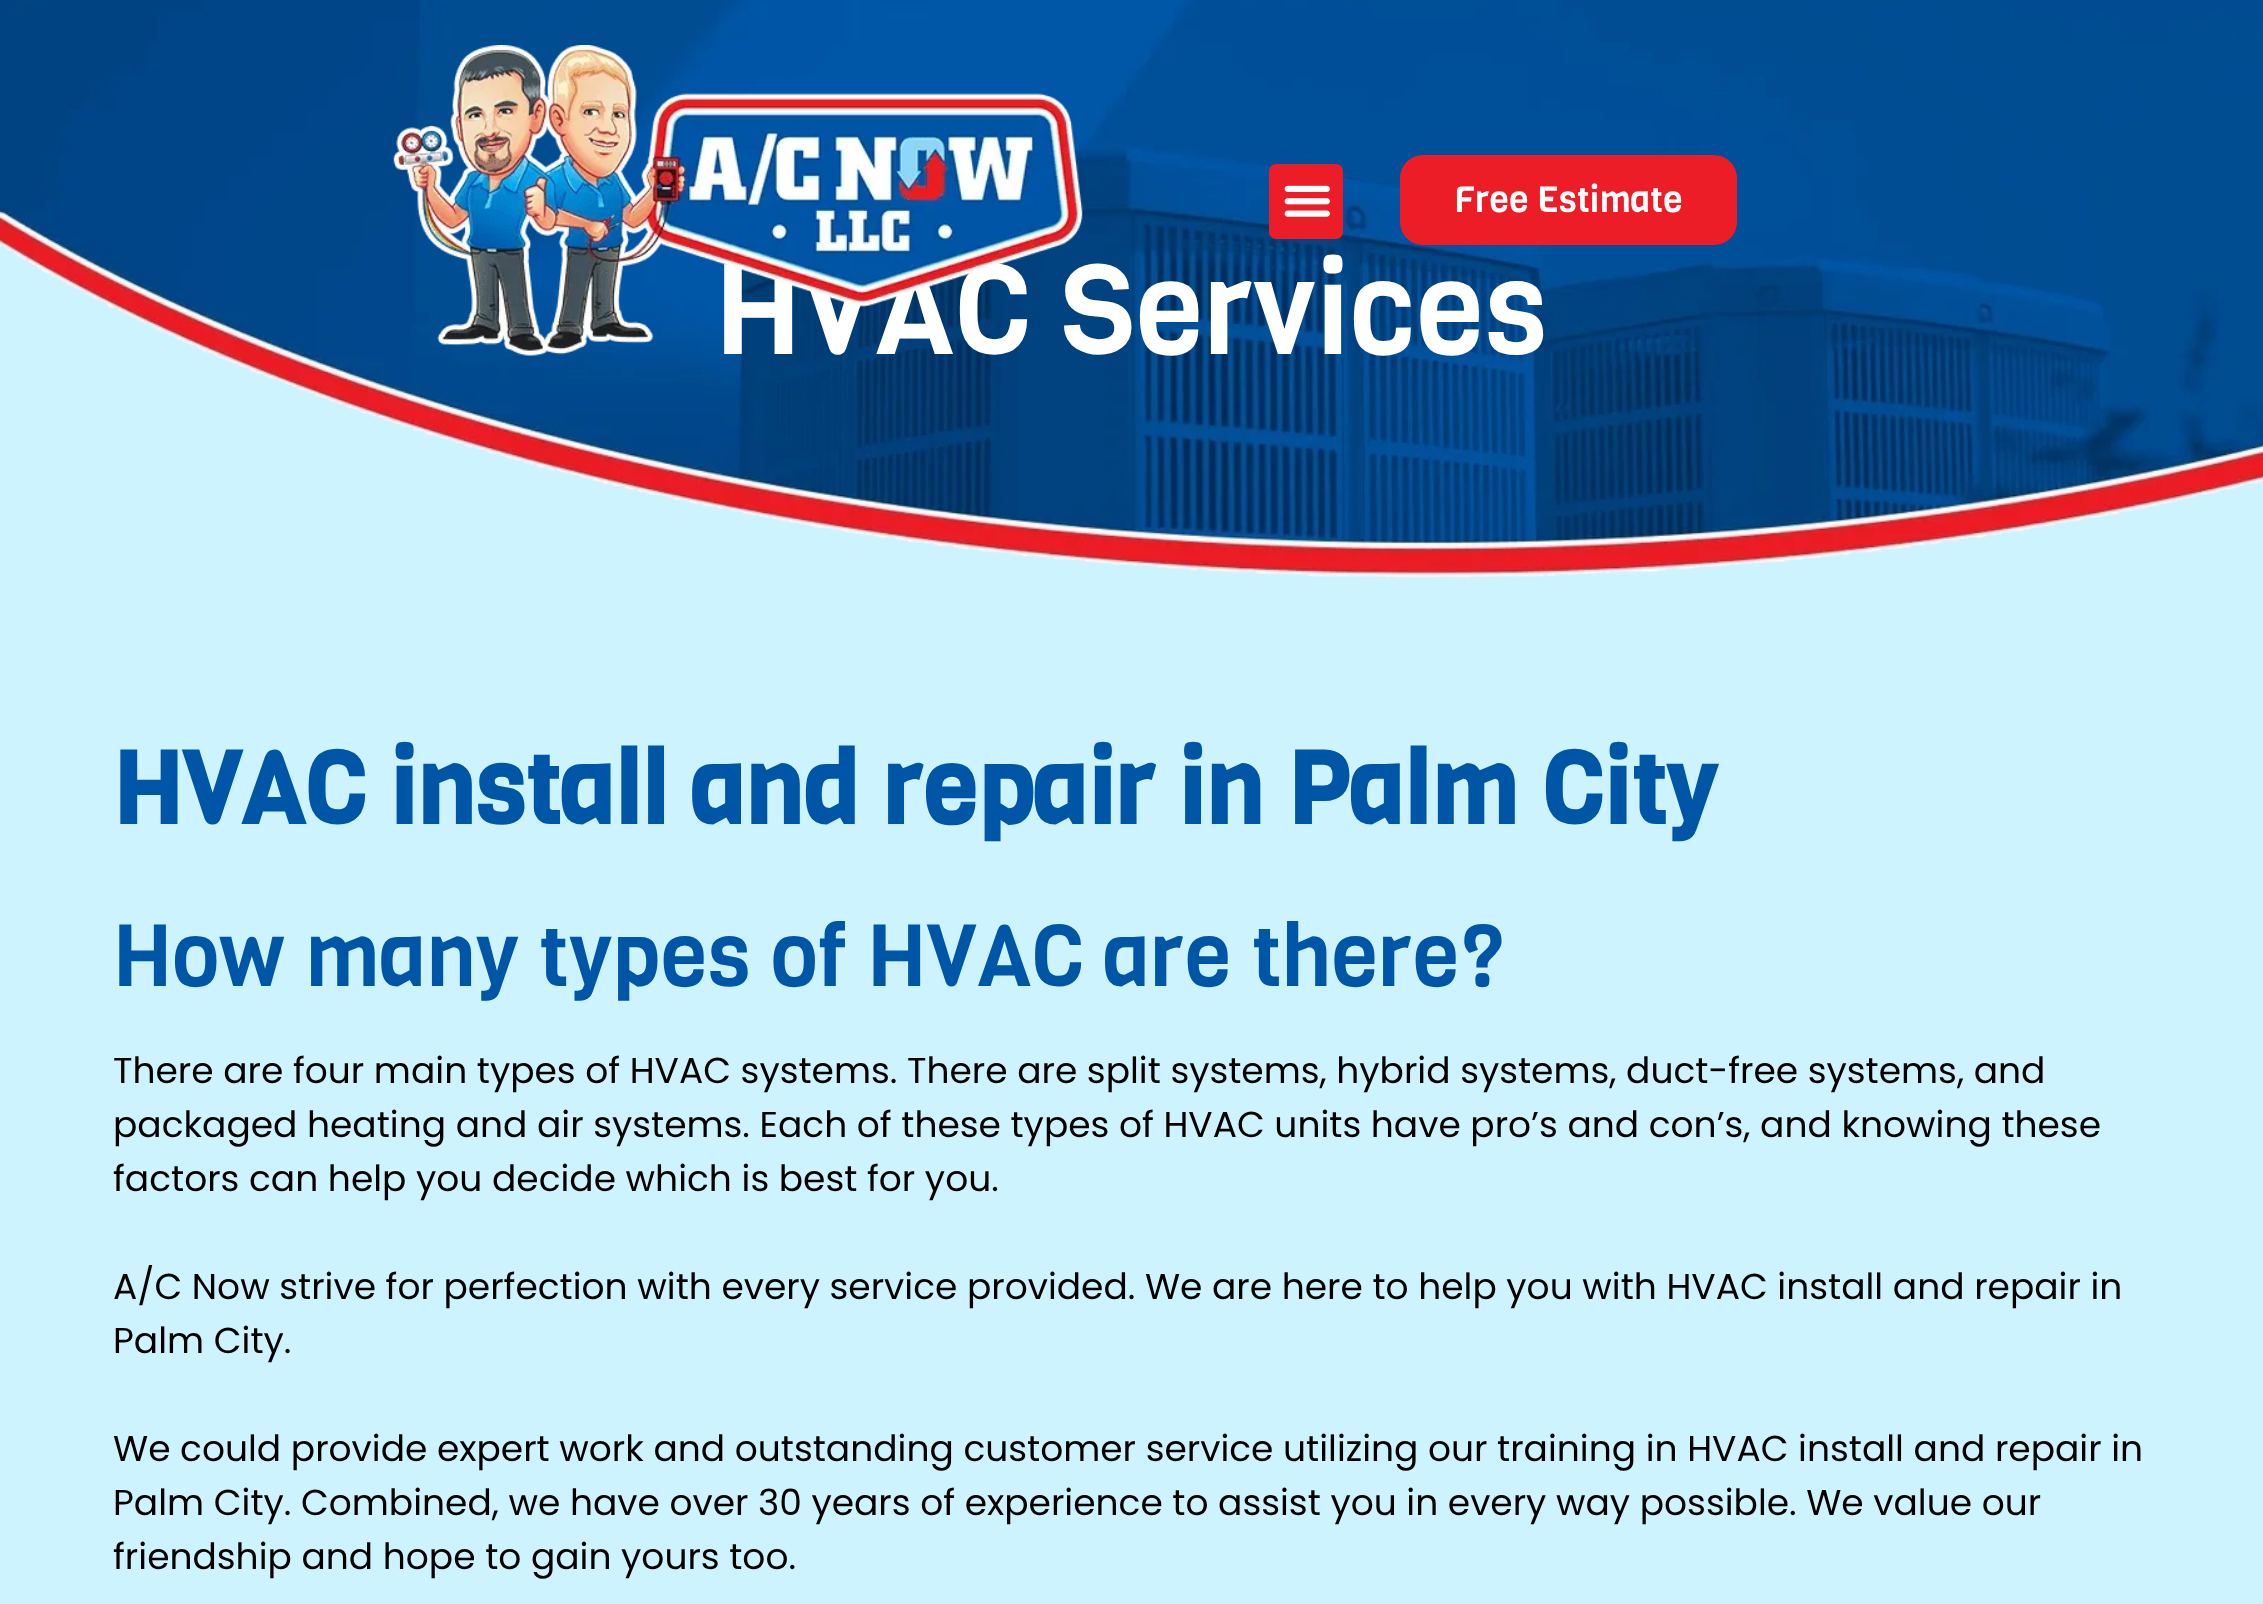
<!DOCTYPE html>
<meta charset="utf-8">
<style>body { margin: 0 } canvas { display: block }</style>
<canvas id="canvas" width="2263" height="1604"></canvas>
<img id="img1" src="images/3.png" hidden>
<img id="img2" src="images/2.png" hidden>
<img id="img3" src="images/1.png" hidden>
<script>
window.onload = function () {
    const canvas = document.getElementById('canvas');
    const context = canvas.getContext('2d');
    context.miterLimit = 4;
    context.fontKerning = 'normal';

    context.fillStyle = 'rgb(205, 243, 255)';
    context.fillRect(0, 0, 2263, 1604);
    context.drawImage(document.getElementById('img1'), 0, 0, 2263, 578);
    context.fillStyle = 'rgb(236, 29, 38)';
    context.beginPath();
    context.roundRect(1269, 164, 74, 75, 7);
    context.fill();
    context.drawImage(document.getElementById('img2'), 1284, 185, 46, 32);
    context.beginPath();
    context.roundRect(1400, 155, 337, 90, 23);
    context.fill();
    context.font = '36px Viga';
    context.fillStyle = 'rgb(255, 255, 255)';
    context.fillText('Free Estimate', 1454, 212);
    context.font = '126px Viga';
    context.fillText('HVAC Services', 715, 354);
    context.drawImage(document.getElementById('img3'), 393, 45, 690, 311);
    context.font = 'bold 100.75px Viga';
    context.fillStyle = 'rgb(0, 86, 166)';
    context.fillText('HVAC install and repair in Palm City', 113, 824);
    context.font = '86.4px Viga';
    context.fillText('How many types of HVAC are there?', 113, 986);
    context.font = '36px Poppins';
    context.fillStyle = 'rgb(0, 0, 0)';
    context.fillText('There are four main types of HVAC systems. There are split systems, hybrid systems, duct-free systems, and', 113, 1083);
    context.fillText('packaged heating and air systems. Each of these types of HVAC units have pro’s and con’s, and knowing these', 113, 1137);
    context.fillText('factors can help you decide which is best for you.', 113, 1191);
    context.fillText('A/C Now strive for perfection with every service provided. We are here to help you with HVAC install and repair in', 113, 1299);
    context.fillText('Palm City.', 113, 1353);
    context.fillText('We could provide expert work and outstanding customer service utilizing our training in HVAC install and repair in', 113, 1461);
    context.fillText('Palm City. Combined, we have over 30 years of experience to assist you in every way possible. We value our', 113, 1515);
    context.fillText('friendship and hope to gain yours too.', 113, 1569);
};
</script>
